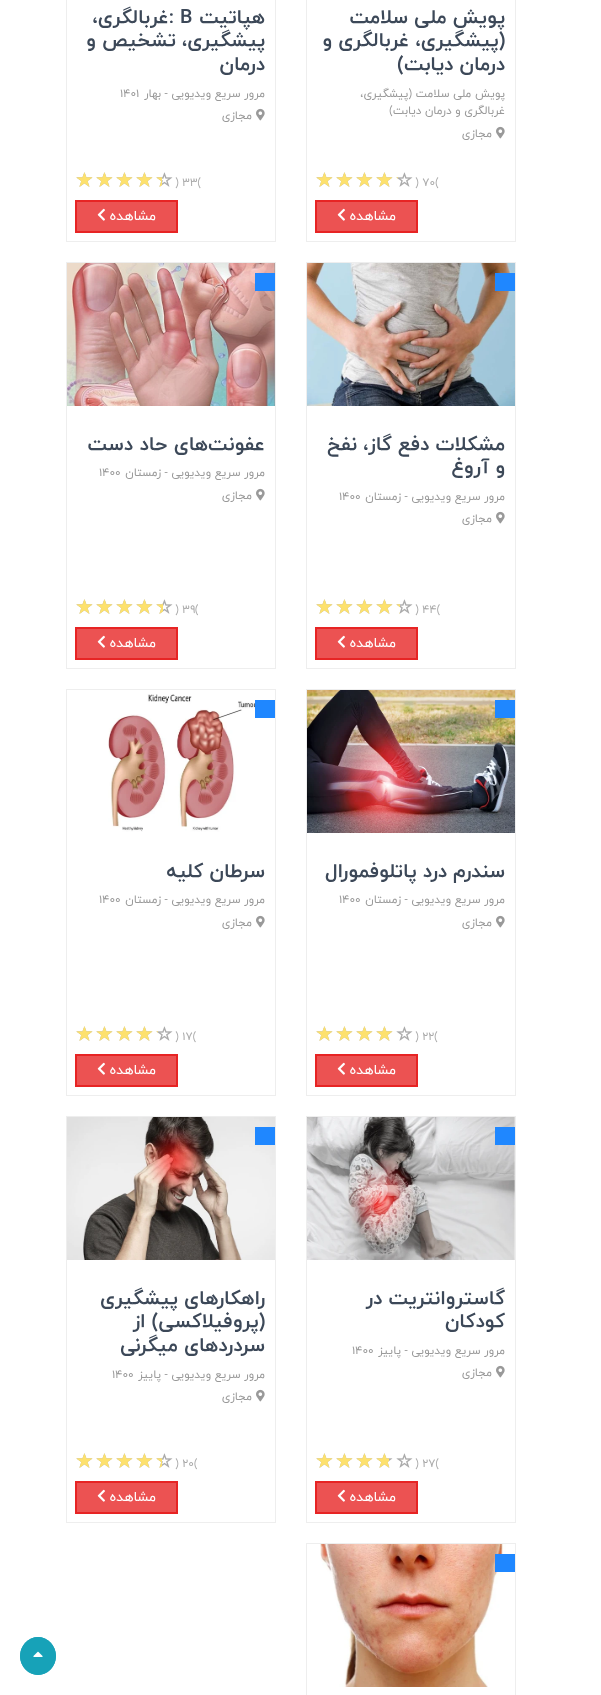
<!DOCTYPE html>
<meta charset="utf-8">
<style>body { margin: 0 } canvas { display: block }</style>
<canvas id="canvas" width="601" height="1695"></canvas>
<img id="img1" src="images/1.png" hidden>
<img id="img2" src="images/2.png" hidden>
<img id="img3" src="images/3.png" hidden>
<img id="img4" src="images/4.png" hidden>
<img id="img5" src="images/5.png" hidden>
<img id="img6" src="images/6.png" hidden>
<img id="img7" src="images/7.png" hidden>
<img id="img8" src="images/8.png" hidden>
<img id="img9" src="images/9.png" hidden>
<img id="img10" src="images/10.png" hidden>
<img id="img11" src="images/11.png" hidden>
<img id="img12" src="images/12.png" hidden>
<img id="img13" src="images/13.png" hidden>
<img id="img14" src="images/14.png" hidden>
<img id="img15" src="images/15.png" hidden>
<img id="img16" src="images/16.png" hidden>
<img id="img17" src="images/17.png" hidden>
<script>
window.onload = function () {
    const canvas = document.getElementById('canvas');
    const context = canvas.getContext('2d');
    context.miterLimit = 4;
    context.fontKerning = 'normal';

    context.fillStyle = 'rgb(255, 255, 255)';
    context.fillRect(0, 0, 601, 1695);
    context.strokeStyle = 'rgb(238, 238, 238)';
    context.strokeRect(306.5, -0.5, 209, 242);
    context.drawImage(document.getElementById('img1'), 496, 126, 9, 13);
    context.drawImage(document.getElementById('img2'), 396, 172, 17, 15);
    context.drawImage(document.getElementById('img2'), 376, 172, 17, 15);
    context.drawImage(document.getElementById('img2'), 356, 172, 17, 15);
    context.drawImage(document.getElementById('img2'), 336, 172, 17, 15);
    context.drawImage(document.getElementById('img2'), 316, 172, 17, 15);
    context.drawImage(document.getElementById('img3'), 396, 177, 2, 2);
    context.drawImage(document.getElementById('img4'), 376, 172, 17, 15);
    context.drawImage(document.getElementById('img4'), 356, 172, 17, 15);
    context.drawImage(document.getElementById('img4'), 336, 172, 17, 15);
    context.drawImage(document.getElementById('img4'), 316, 172, 17, 15);
    context.fillStyle = 'rgb(236, 82, 82)';
    context.beginPath();
    context.rect(316, 201, 101, 31);
    context.fill();
    context.strokeStyle = 'rgb(231, 36, 36)';
    context.lineWidth = 2;
    context.stroke();
    context.drawImage(document.getElementById('img5'), 337, 208, 8, 13);
    context.strokeStyle = 'rgb(238, 238, 238)';
    context.lineWidth = 1;
    context.strokeRect(66.5, -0.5, 209, 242);
    context.drawImage(document.getElementById('img1'), 256, 108, 9, 13);
    context.drawImage(document.getElementById('img2'), 156, 172, 17, 15);
    context.drawImage(document.getElementById('img2'), 136, 172, 17, 15);
    context.drawImage(document.getElementById('img2'), 116, 172, 17, 15);
    context.drawImage(document.getElementById('img2'), 96, 172, 17, 15);
    context.drawImage(document.getElementById('img2'), 76, 172, 17, 15);
    context.drawImage(document.getElementById('img6'), 156, 177, 6, 10);
    context.drawImage(document.getElementById('img4'), 136, 172, 17, 15);
    context.drawImage(document.getElementById('img4'), 116, 172, 17, 15);
    context.drawImage(document.getElementById('img4'), 96, 172, 17, 15);
    context.drawImage(document.getElementById('img4'), 76, 172, 17, 15);
    context.beginPath();
    context.rect(76, 201, 101, 31);
    context.fill();
    context.strokeStyle = 'rgb(231, 36, 36)';
    context.lineWidth = 2;
    context.stroke();
    context.drawImage(document.getElementById('img5'), 97, 208, 8, 13);
    context.strokeStyle = 'rgb(238, 238, 238)';
    context.lineWidth = 1;
    context.strokeRect(306.5, 262.5, 209, 406);
    context.drawImage(document.getElementById('img7'), 307, 263, 208, 143);
    context.fillStyle = 'rgb(31, 135, 255)';
    context.fillRect(495, 273, 20, 18);
    context.drawImage(document.getElementById('img1'), 496, 511, 9, 13);
    context.drawImage(document.getElementById('img2'), 396, 599, 17, 15);
    context.drawImage(document.getElementById('img2'), 376, 599, 17, 15);
    context.drawImage(document.getElementById('img2'), 356, 599, 17, 15);
    context.drawImage(document.getElementById('img2'), 336, 599, 17, 15);
    context.drawImage(document.getElementById('img2'), 316, 599, 17, 15);
    context.drawImage(document.getElementById('img8'), 396, 604, 4, 10);
    context.drawImage(document.getElementById('img4'), 376, 599, 17, 15);
    context.drawImage(document.getElementById('img4'), 356, 599, 17, 15);
    context.drawImage(document.getElementById('img4'), 336, 599, 17, 15);
    context.drawImage(document.getElementById('img4'), 316, 599, 17, 15);
    context.fillStyle = 'rgb(236, 82, 82)';
    context.beginPath();
    context.rect(316, 628, 101, 31);
    context.fill();
    context.strokeStyle = 'rgb(231, 36, 36)';
    context.lineWidth = 2;
    context.stroke();
    context.drawImage(document.getElementById('img5'), 337, 635, 8, 13);
    context.strokeStyle = 'rgb(238, 238, 238)';
    context.lineWidth = 1;
    context.strokeRect(66.5, 262.5, 209, 406);
    context.drawImage(document.getElementById('img9'), 67, 263, 208, 143);
    context.fillStyle = 'rgb(31, 135, 255)';
    context.fillRect(255, 273, 20, 18);
    context.drawImage(document.getElementById('img1'), 256, 488, 9, 13);
    context.drawImage(document.getElementById('img2'), 156, 599, 17, 15);
    context.drawImage(document.getElementById('img2'), 136, 599, 17, 15);
    context.drawImage(document.getElementById('img2'), 116, 599, 17, 15);
    context.drawImage(document.getElementById('img2'), 96, 599, 17, 15);
    context.drawImage(document.getElementById('img2'), 76, 599, 17, 15);
    context.drawImage(document.getElementById('img10'), 156, 603, 7, 11);
    context.drawImage(document.getElementById('img4'), 136, 599, 17, 15);
    context.drawImage(document.getElementById('img4'), 116, 599, 17, 15);
    context.drawImage(document.getElementById('img4'), 96, 599, 17, 15);
    context.drawImage(document.getElementById('img4'), 76, 599, 17, 15);
    context.fillStyle = 'rgb(236, 82, 82)';
    context.beginPath();
    context.rect(76, 628, 101, 31);
    context.fill();
    context.strokeStyle = 'rgb(231, 36, 36)';
    context.lineWidth = 2;
    context.stroke();
    context.drawImage(document.getElementById('img5'), 97, 635, 8, 13);
    context.strokeStyle = 'rgb(238, 238, 238)';
    context.lineWidth = 1;
    context.strokeRect(306.5, 689.5, 209, 406);
    context.drawImage(document.getElementById('img11'), 307, 690, 208, 143);
    context.fillStyle = 'rgb(31, 135, 255)';
    context.fillRect(495, 700, 20, 18);
    context.drawImage(document.getElementById('img1'), 496, 915, 9, 13);
    context.drawImage(document.getElementById('img2'), 396, 1026, 17, 15);
    context.drawImage(document.getElementById('img2'), 376, 1026, 17, 15);
    context.drawImage(document.getElementById('img2'), 356, 1026, 17, 15);
    context.drawImage(document.getElementById('img2'), 336, 1026, 17, 15);
    context.drawImage(document.getElementById('img2'), 316, 1026, 17, 15);
    context.drawImage(document.getElementById('img4'), 376, 1026, 17, 15);
    context.drawImage(document.getElementById('img4'), 356, 1026, 17, 15);
    context.drawImage(document.getElementById('img4'), 336, 1026, 17, 15);
    context.drawImage(document.getElementById('img4'), 316, 1026, 17, 15);
    context.fillStyle = 'rgb(236, 82, 82)';
    context.beginPath();
    context.rect(316, 1055, 101, 31);
    context.fill();
    context.strokeStyle = 'rgb(231, 36, 36)';
    context.lineWidth = 2;
    context.stroke();
    context.drawImage(document.getElementById('img5'), 337, 1062, 8, 13);
    context.strokeStyle = 'rgb(238, 238, 238)';
    context.lineWidth = 1;
    context.strokeRect(66.5, 689.5, 209, 406);
    context.drawImage(document.getElementById('img12'), 108, 694, 152, 138);
    context.fillStyle = 'rgb(31, 135, 255)';
    context.fillRect(255, 700, 20, 18);
    context.drawImage(document.getElementById('img1'), 256, 915, 9, 13);
    context.drawImage(document.getElementById('img2'), 156, 1026, 17, 15);
    context.drawImage(document.getElementById('img2'), 136, 1026, 17, 15);
    context.drawImage(document.getElementById('img2'), 116, 1026, 17, 15);
    context.drawImage(document.getElementById('img2'), 96, 1026, 17, 15);
    context.drawImage(document.getElementById('img2'), 76, 1026, 17, 15);
    context.drawImage(document.getElementById('img3'), 156, 1031, 2, 2);
    context.drawImage(document.getElementById('img4'), 136, 1026, 17, 15);
    context.drawImage(document.getElementById('img4'), 116, 1026, 17, 15);
    context.drawImage(document.getElementById('img4'), 96, 1026, 17, 15);
    context.drawImage(document.getElementById('img4'), 76, 1026, 17, 15);
    context.fillStyle = 'rgb(236, 82, 82)';
    context.beginPath();
    context.rect(76, 1055, 101, 31);
    context.fill();
    context.strokeStyle = 'rgb(231, 36, 36)';
    context.lineWidth = 2;
    context.stroke();
    context.drawImage(document.getElementById('img5'), 97, 1062, 8, 13);
    context.strokeStyle = 'rgb(238, 238, 238)';
    context.lineWidth = 1;
    context.strokeRect(306.5, 1116.5, 209, 406);
    context.drawImage(document.getElementById('img13'), 307, 1117, 208, 143);
    context.fillStyle = 'rgb(31, 135, 255)';
    context.fillRect(495, 1127, 20, 18);
    context.drawImage(document.getElementById('img1'), 496, 1365, 9, 13);
    context.drawImage(document.getElementById('img2'), 396, 1453, 17, 15);
    context.drawImage(document.getElementById('img2'), 376, 1453, 17, 15);
    context.drawImage(document.getElementById('img2'), 356, 1453, 17, 15);
    context.drawImage(document.getElementById('img2'), 336, 1453, 17, 15);
    context.drawImage(document.getElementById('img2'), 316, 1453, 17, 15);
    context.drawImage(document.getElementById('img14'), 376, 1453, 13, 15);
    context.drawImage(document.getElementById('img4'), 356, 1453, 17, 15);
    context.drawImage(document.getElementById('img4'), 336, 1453, 17, 15);
    context.drawImage(document.getElementById('img4'), 316, 1453, 17, 15);
    context.fillStyle = 'rgb(236, 82, 82)';
    context.beginPath();
    context.rect(316, 1482, 101, 31);
    context.fill();
    context.strokeStyle = 'rgb(231, 36, 36)';
    context.lineWidth = 2;
    context.stroke();
    context.drawImage(document.getElementById('img5'), 337, 1489, 8, 13);
    context.strokeStyle = 'rgb(238, 238, 238)';
    context.lineWidth = 1;
    context.strokeRect(66.5, 1116.5, 209, 406);
    context.drawImage(document.getElementById('img15'), 67, 1117, 208, 143);
    context.fillStyle = 'rgb(31, 135, 255)';
    context.fillRect(255, 1127, 20, 18);
    context.drawImage(document.getElementById('img1'), 256, 1389, 9, 13);
    context.drawImage(document.getElementById('img2'), 156, 1453, 17, 15);
    context.drawImage(document.getElementById('img2'), 136, 1453, 17, 15);
    context.drawImage(document.getElementById('img2'), 116, 1453, 17, 15);
    context.drawImage(document.getElementById('img2'), 96, 1453, 17, 15);
    context.drawImage(document.getElementById('img2'), 76, 1453, 17, 15);
    context.drawImage(document.getElementById('img6'), 156, 1458, 6, 10);
    context.drawImage(document.getElementById('img4'), 136, 1453, 17, 15);
    context.drawImage(document.getElementById('img4'), 116, 1453, 17, 15);
    context.drawImage(document.getElementById('img4'), 96, 1453, 17, 15);
    context.drawImage(document.getElementById('img4'), 76, 1453, 17, 15);
    context.fillStyle = 'rgb(236, 82, 82)';
    context.beginPath();
    context.rect(76, 1482, 101, 31);
    context.fill();
    context.strokeStyle = 'rgb(231, 36, 36)';
    context.lineWidth = 2;
    context.stroke();
    context.drawImage(document.getElementById('img5'), 97, 1489, 8, 13);
    context.strokeStyle = 'rgb(238, 238, 238)';
    context.lineWidth = 1;
    context.strokeRect(306.5, 1543.5, 209, 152);
    context.drawImage(document.getElementById('img16'), 320, 1544, 186, 143);
    context.fillStyle = 'rgb(31, 135, 255)';
    context.fillRect(495, 1554, 20, 18);
    context.fillStyle = 'rgb(23, 162, 184)';
    context.beginPath();
    context.ellipse(38, 1656, 18, 19, 0, 0, 2 * Math.PI);
    context.fill();
    context.beginPath();
    context.moveTo(38, 1637.5);
    context.bezierCurveTo(47.5, 1637.5, 55.5, 1646, 55.5, 1656);
    context.bezierCurveTo(55.5, 1666, 47.5, 1674.5, 38, 1674.5);
    context.bezierCurveTo(28.5, 1674.5, 20.5, 1666, 20.5, 1656);
    context.bezierCurveTo(20.5, 1646, 28.5, 1637.5, 38, 1637.5);
    context.closePath();
    context.strokeStyle = 'rgb(23, 162, 184)';
    context.stroke();
    context.drawImage(document.getElementById('img17'), 33, 1651, 10, 6);
    context.direction = 'rtl';
    context.font = 'bold 19.75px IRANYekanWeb';
    context.fillStyle = 'rgb(60, 72, 88)';
    context.fillText('پویش ملی سلامت', 505, 23);
    context.fillText('(پیشگیری، غربالگری و', 505, 46);
    context.fillText('درمان دیابت)', 505, 70);
    context.font = '11.5px IRANYekanWeb';
    context.fillStyle = 'rgb(153, 153, 153)';
    context.fillText('پویش ملی سلامت (پیشگیری،', 505, 97);
    context.fillText('غربالگری و درمان دیابت)', 505, 114);
    context.fillText('مجازی', 492, 137);
    context.direction = 'ltr';
    context.fillStyle = 'rgb(170, 170, 170)';
    context.fillText(') ۷۰(', 415, 186);
    context.direction = 'rtl';
    context.font = '14px IRANYekanWeb';
    context.fillStyle = 'rgb(255, 255, 255)';
    context.fillText('مشاهده', 396, 220);
    context.font = 'bold 19.75px IRANYekanWeb';
    context.fillStyle = 'rgb(60, 72, 88)';
    context.fillText('هپاتیت', 265, 23);
    context.direction = 'ltr';
    context.fillText('B', 180, 23);
    context.direction = 'rtl';
    context.fillText(':غربالگری،', 174, 23);
    context.fillText('پیشگیری، تشخیص و', 265, 46);
    context.fillText('درمان', 265, 70);
    context.font = '11.5px IRANYekanWeb';
    context.fillStyle = 'rgb(153, 153, 153)';
    context.fillText('مرور سریع ویدیویی - بهار', 265, 97);
    context.direction = 'ltr';
    context.fillText('۱۴۰۱', 120, 97);
    context.direction = 'rtl';
    context.fillText('مجازی', 252, 119);
    context.direction = 'ltr';
    context.fillStyle = 'rgb(170, 170, 170)';
    context.fillText(') ۳۳(', 175, 186);
    context.direction = 'rtl';
    context.font = '14px IRANYekanWeb';
    context.fillStyle = 'rgb(255, 255, 255)';
    context.fillText('مشاهده', 156, 220);
    context.font = 'bold 19.75px IRANYekanWeb';
    context.fillStyle = 'rgb(60, 72, 88)';
    context.fillText('مشکلات دفع گاز، نفخ', 505, 450);
    context.fillText('و آروغ', 505, 473);
    context.font = '11.5px IRANYekanWeb';
    context.fillStyle = 'rgb(153, 153, 153)';
    context.fillText('مرور سریع ویدیویی - زمستان', 505, 500);
    context.direction = 'ltr';
    context.fillText('۱۴۰۰', 339, 500);
    context.direction = 'rtl';
    context.fillText('مجازی', 492, 522);
    context.direction = 'ltr';
    context.fillStyle = 'rgb(170, 170, 170)';
    context.fillText(') ۴۴(', 415, 613);
    context.direction = 'rtl';
    context.font = '14px IRANYekanWeb';
    context.fillStyle = 'rgb(255, 255, 255)';
    context.fillText('مشاهده', 396, 647);
    context.font = 'bold 19.75px IRANYekanWeb';
    context.fillStyle = 'rgb(60, 72, 88)';
    context.fillText('عفونت‌های حاد دست', 265, 450);
    context.font = '11.5px IRANYekanWeb';
    context.fillStyle = 'rgb(153, 153, 153)';
    context.fillText('مرور سریع ویدیویی - زمستان', 265, 476);
    context.direction = 'ltr';
    context.fillText('۱۴۰۰', 99, 476);
    context.direction = 'rtl';
    context.fillText('مجازی', 252, 499);
    context.direction = 'ltr';
    context.fillStyle = 'rgb(170, 170, 170)';
    context.fillText(') ۳۹(', 175, 613);
    context.direction = 'rtl';
    context.font = '14px IRANYekanWeb';
    context.fillStyle = 'rgb(255, 255, 255)';
    context.fillText('مشاهده', 156, 647);
    context.font = 'bold 19.75px IRANYekanWeb';
    context.fillStyle = 'rgb(60, 72, 88)';
    context.fillText('سندرم درد پاتلوفمورال', 505, 877);
    context.font = '11.5px IRANYekanWeb';
    context.fillStyle = 'rgb(153, 153, 153)';
    context.fillText('مرور سریع ویدیویی - زمستان', 505, 903);
    context.direction = 'ltr';
    context.fillText('۱۴۰۰', 339, 903);
    context.direction = 'rtl';
    context.fillText('مجازی', 492, 926);
    context.direction = 'ltr';
    context.fillStyle = 'rgb(170, 170, 170)';
    context.fillText(') ۲۲(', 415, 1040);
    context.direction = 'rtl';
    context.font = '14px IRANYekanWeb';
    context.fillStyle = 'rgb(255, 255, 255)';
    context.fillText('مشاهده', 396, 1074);
    context.font = 'bold 19.75px IRANYekanWeb';
    context.fillStyle = 'rgb(60, 72, 88)';
    context.fillText('سرطان کلیه', 265, 877);
    context.font = '11.5px IRANYekanWeb';
    context.fillStyle = 'rgb(153, 153, 153)';
    context.fillText('مرور سریع ویدیویی - زمستان', 265, 903);
    context.direction = 'ltr';
    context.fillText('۱۴۰۰', 99, 903);
    context.direction = 'rtl';
    context.fillText('مجازی', 252, 926);
    context.direction = 'ltr';
    context.fillStyle = 'rgb(170, 170, 170)';
    context.fillText(') ۱۷(', 175, 1040);
    context.direction = 'rtl';
    context.font = '14px IRANYekanWeb';
    context.fillStyle = 'rgb(255, 255, 255)';
    context.fillText('مشاهده', 156, 1074);
    context.font = 'bold 19.75px IRANYekanWeb';
    context.fillStyle = 'rgb(60, 72, 88)';
    context.fillText('گاستروانتریت در', 505, 1304);
    context.fillText('کودکان', 505, 1327);
    context.font = '11.5px IRANYekanWeb';
    context.fillStyle = 'rgb(153, 153, 153)';
    context.fillText('مرور سریع ویدیویی - پاییز', 505, 1354);
    context.direction = 'ltr';
    context.fillText('۱۴۰۰', 352, 1354);
    context.direction = 'rtl';
    context.fillText('مجازی', 492, 1376);
    context.direction = 'ltr';
    context.fillStyle = 'rgb(170, 170, 170)';
    context.fillText(') ۲۷(', 415, 1467);
    context.direction = 'rtl';
    context.font = '14px IRANYekanWeb';
    context.fillStyle = 'rgb(255, 255, 255)';
    context.fillText('مشاهده', 396, 1501);
    context.font = 'bold 19.75px IRANYekanWeb';
    context.fillStyle = 'rgb(60, 72, 88)';
    context.fillText('راهکارهای پیشگیری', 265, 1304);
    context.fillText('(پروفیلاکسی) از', 265, 1327);
    context.fillText('سردردهای میگرنی', 265, 1351);
    context.font = '11.5px IRANYekanWeb';
    context.fillStyle = 'rgb(153, 153, 153)';
    context.fillText('مرور سریع ویدیویی - پاییز', 265, 1378);
    context.direction = 'ltr';
    context.fillText('۱۴۰۰', 112, 1378);
    context.direction = 'rtl';
    context.fillText('مجازی', 252, 1400);
    context.direction = 'ltr';
    context.fillStyle = 'rgb(170, 170, 170)';
    context.fillText(') ۲۰(', 175, 1467);
    context.direction = 'rtl';
    context.font = '14px IRANYekanWeb';
    context.fillStyle = 'rgb(255, 255, 255)';
    context.fillText('مشاهده', 156, 1501);
};
</script>
